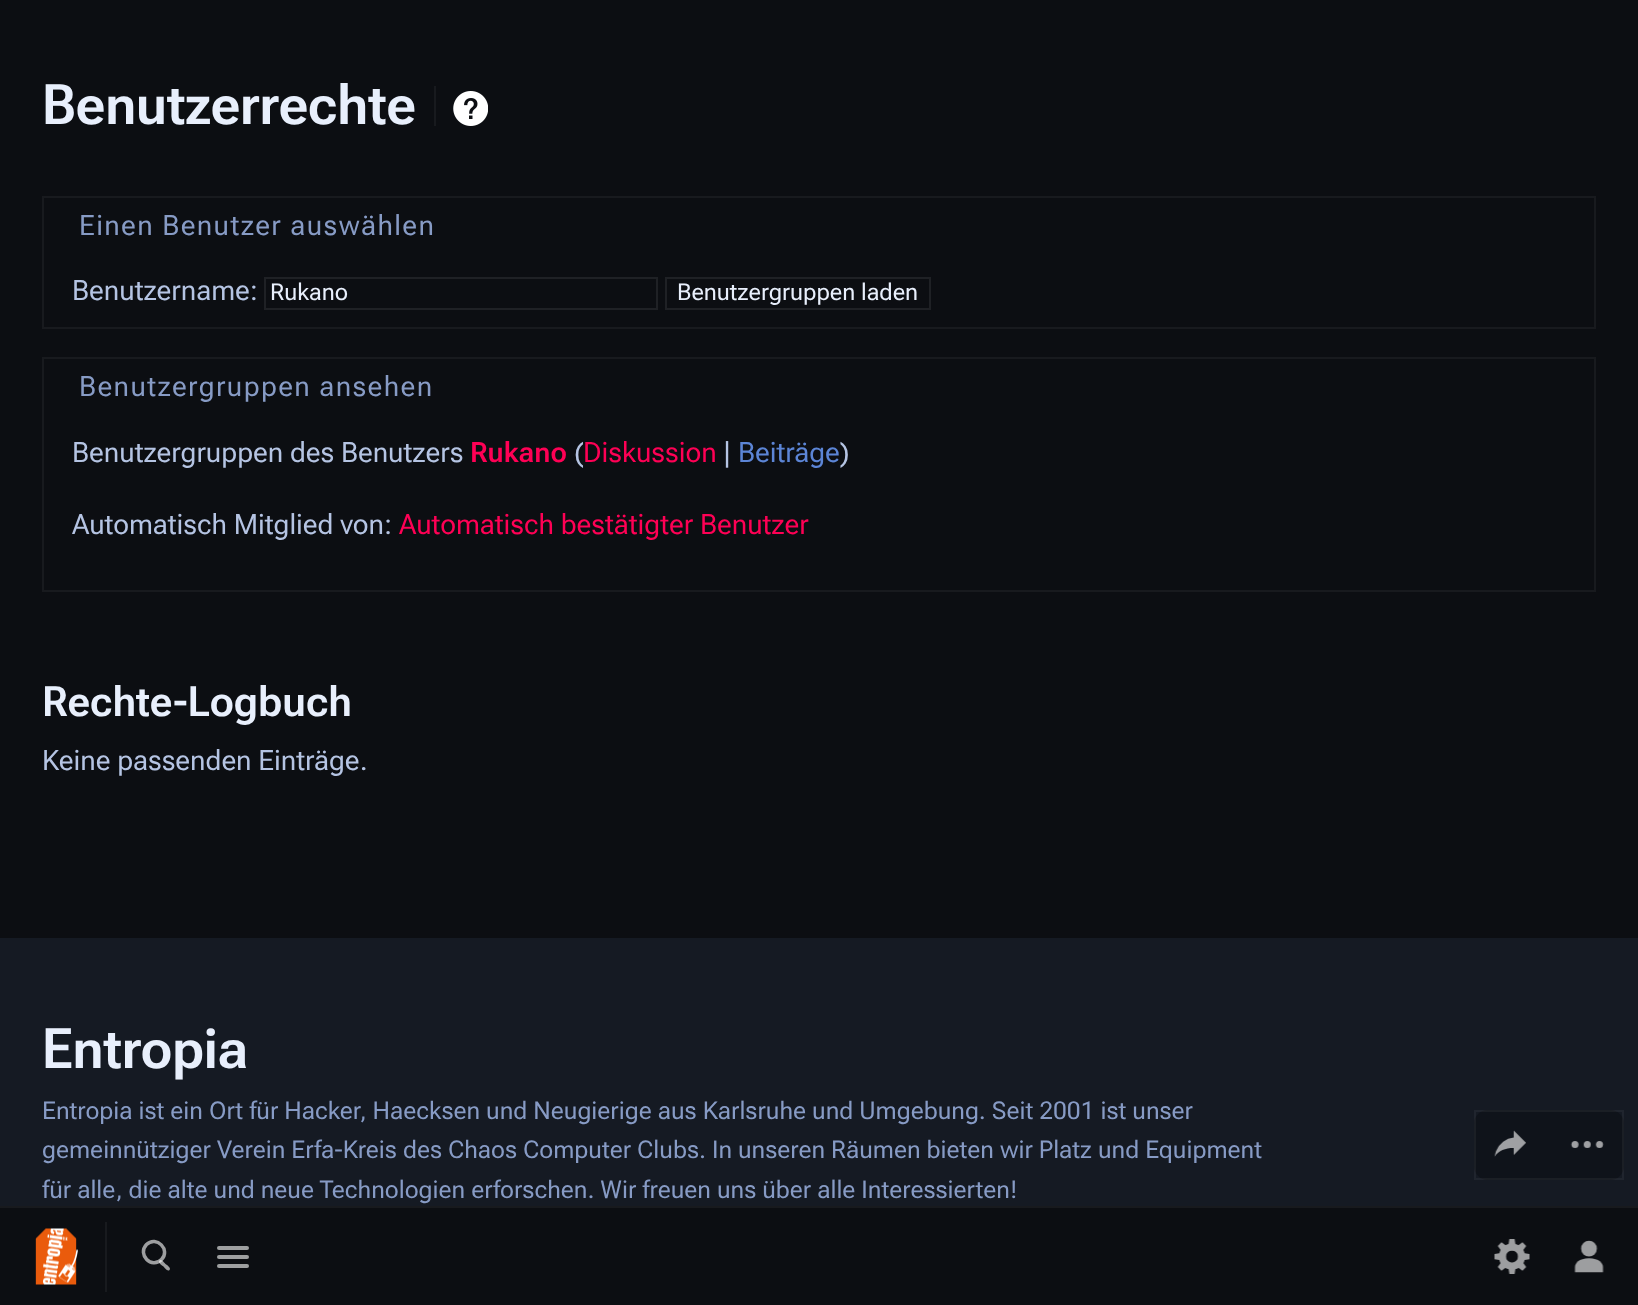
<!DOCTYPE html>
<meta charset="utf-8">
<style>body { margin: 0 } canvas { display: block }</style>
<canvas id="canvas" width="1638" height="1305"></canvas>
<img id="img1" src="images/1.png" hidden>
<img id="img2" src="images/2.png" hidden>
<img id="img3" src="images/3.png" hidden>
<img id="img4" src="images/4.png" hidden>
<img id="img5" src="images/5.png" hidden>
<img id="img6" src="images/6.png" hidden>
<script>
window.onload = function () {
    const canvas = document.getElementById('canvas');
    const context = canvas.getContext('2d');
    context.miterLimit = 4;
    context.fontKerning = 'normal';

    context.fillStyle = 'rgb(12, 14, 18)';
    context.fillRect(0, 0, 1638, 1305);
    context.fillStyle = 'rgb(24, 26, 30)';
    context.fillRect(434, 86, 2, 40);
    context.drawImage(document.getElementById('img1'), 453, 91, 35, 35);
    context.fillStyle = 'rgb(21, 26, 35)';
    context.fillRect(0, 938, 1638, 268);
    context.fillStyle = 'rgb(15, 19, 26)';
    context.beginPath();
    context.roundRect(1474, 1110, 150, 70, 14);
    context.fill();
    context.strokeStyle = 'rgba(255, 255, 255, 0.05)';
    context.lineWidth = 2;
    context.strokeRect(1475, 1111, 148, 68);
    context.drawImage(document.getElementById('img2'), 1494, 1130, 32, 27);
    context.drawImage(document.getElementById('img3'), 1570, 1141, 34, 7);
    context.strokeStyle = 'rgb(24, 26, 30)';
    context.strokeRect(43, 197, 1552, 131);
    context.strokeStyle = 'rgb(31, 33, 37)';
    context.strokeRect(265, 278, 392, 31);
    context.strokeRect(666, 278, 264, 31);
    context.strokeStyle = 'rgb(24, 26, 30)';
    context.strokeRect(43, 358, 1552, 233);
    context.fillStyle = 'rgb(24, 26, 30)';
    context.fillRect(0, 1206, 1638, 2);
    context.fillRect(105, 1222, 2, 70);
    context.drawImage(document.getElementById('img4'), 35, 1228, 43, 57);
    context.fillStyle = 'rgb(158, 159, 160)';
    context.beginPath();
    context.moveTo(159.5, 1260.5);
    context.bezierCurveTo(161.5, 1258.5, 164.5, 1263, 165.5, 1264);
    context.bezierCurveTo(167, 1265, 171.5, 1268, 169.5, 1270);
    context.bezierCurveTo(167.5, 1272, 164.5, 1267.5, 163.5, 1266.5);
    context.bezierCurveTo(162, 1265.5, 157.5, 1262.5, 159.5, 1260.5);
    context.closePath();
    context.fill();
    context.beginPath();
    context.moveTo(146.5, 1244.5);
    context.bezierCurveTo(156.5, 1235, 171, 1250, 161.5, 1259.5);
    context.bezierCurveTo(151.5, 1269.5, 137, 1254.5, 146.5, 1244.5);
    context.closePath();
    context.strokeStyle = 'rgba(255, 255, 255, 0.6)';
    context.lineWidth = 3.5;
    context.stroke();
    context.beginPath();
    context.roundRect(217, 1246, 32, 4, 2);
    context.fill();
    context.beginPath();
    context.roundRect(217, 1255, 32, 4, 2);
    context.fill();
    context.beginPath();
    context.roundRect(217, 1264, 32, 4, 2);
    context.fill();
    context.drawImage(document.getElementById('img5'), 1494, 1239, 36, 35);
    context.drawImage(document.getElementById('img6'), 1574, 1240, 30, 33);
    context.font = '600 56px "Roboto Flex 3"';
    context.fillStyle = 'rgb(232, 239, 252)';
    context.fillText('Benutzerrechte', 42, 124);
    context.letterSpacing = '1.4px';
    context.font = '28px Roboto Flex';
    context.fillStyle = 'rgb(135, 155, 197)';
    context.fillText('Einen Benutzer auswählen', 79, 235);
    context.letterSpacing = '0px';
    context.fillStyle = 'rgb(181, 196, 227)';
    context.fillText('Benutzername:', 72, 300);
    context.font = '23.25px "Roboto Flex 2"';
    context.fillStyle = 'rgb(232, 239, 252)';
    context.fillText('Rukano', 270, 300);
    context.fillText('Benutzergruppen laden', 677, 300);
    context.letterSpacing = '1.4px';
    context.font = '28px Roboto Flex';
    context.fillStyle = 'rgb(135, 155, 197)';
    context.fillText('Benutzergruppen ansehen', 79, 396);
    context.letterSpacing = '0px';
    context.fillStyle = 'rgb(181, 196, 227)';
    context.fillText('Benutzergruppen des Benutzers', 72, 462);
    context.font = '600 28px Roboto Flex';
    context.fillStyle = 'rgb(255, 0, 85)';
    context.fillText('Rukano', 470, 462);
    context.font = '28px Roboto Flex';
    context.fillStyle = 'rgb(181, 196, 227)';
    context.fillText('(', 574, 462);
    context.fillStyle = 'rgb(255, 0, 85)';
    context.fillText('Diskussion', 583, 462);
    context.fillStyle = 'rgb(181, 196, 227)';
    context.fillText('|', 723, 462);
    context.fillStyle = 'rgb(92, 133, 214)';
    context.fillText('Beiträge', 738, 462);
    context.fillStyle = 'rgb(181, 196, 227)';
    context.fillText(')', 840, 462);
    context.fillText('Automatisch Mitglied von:', 72, 534);
    context.fillStyle = 'rgb(255, 0, 85)';
    context.fillText('Automatisch bestätigter Benutzer', 399, 534);
    context.font = '600 42px "Roboto Flex 2"';
    context.fillStyle = 'rgb(232, 239, 252)';
    context.fillText('Rechte-Logbuch', 42, 716);
    context.font = '28px Roboto Flex';
    context.fillStyle = 'rgb(181, 196, 227)';
    context.fillText('Keine passenden Einträge.', 42, 770);
    context.font = '600 56px "Roboto Flex 3"';
    context.fillStyle = 'rgb(232, 239, 252)';
    context.fillText('Entropia', 42, 1068);
    context.font = '24.5px "Roboto Flex 3"';
    context.fillStyle = 'rgb(135, 155, 197)';
    context.fillText('Entropia ist ein Ort für Hacker, Haecksen und Neugierige aus Karlsruhe und Umgebung. Seit 2001 ist unser', 42, 1119);
    context.fillText('gemeinnütziger Verein Erfa-Kreis des Chaos Computer Clubs. In unseren Räumen bieten wir Platz und Equipment', 42, 1158);
    context.fillText('für alle, die alte und neue Technologien erforschen. Wir freuen uns über alle Interessierten!', 42, 1198);
};
</script>
